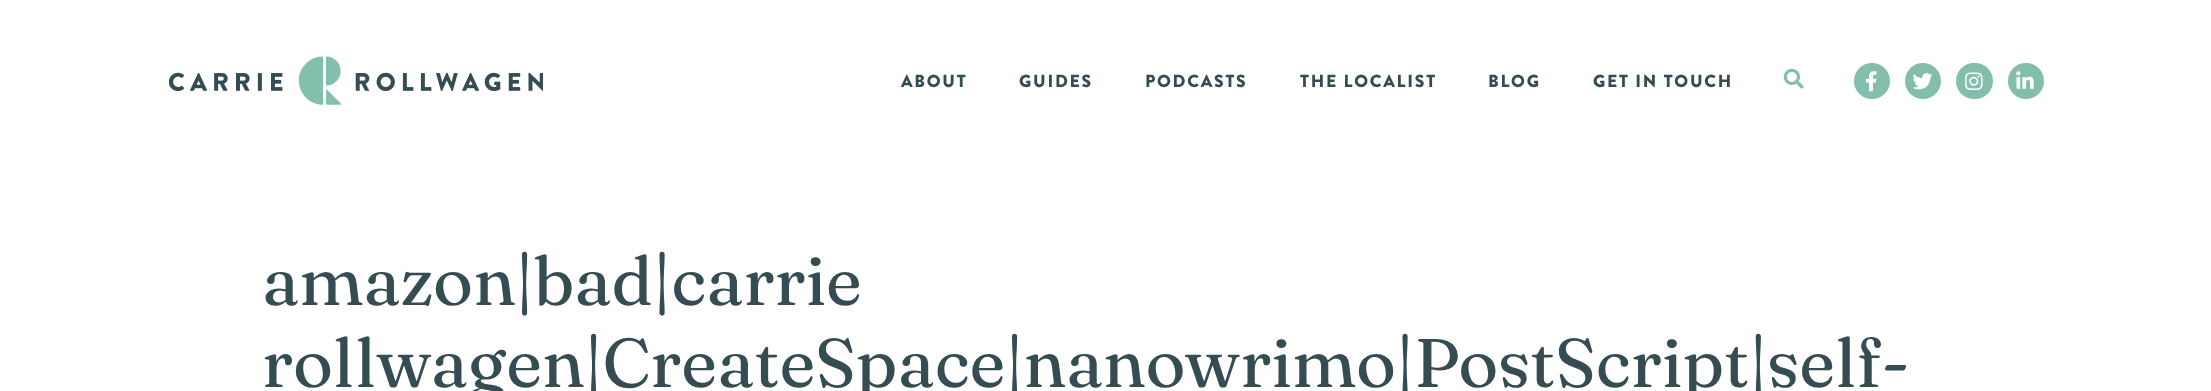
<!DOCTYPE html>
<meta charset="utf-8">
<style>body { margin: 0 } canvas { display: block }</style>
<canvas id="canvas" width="2211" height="391"></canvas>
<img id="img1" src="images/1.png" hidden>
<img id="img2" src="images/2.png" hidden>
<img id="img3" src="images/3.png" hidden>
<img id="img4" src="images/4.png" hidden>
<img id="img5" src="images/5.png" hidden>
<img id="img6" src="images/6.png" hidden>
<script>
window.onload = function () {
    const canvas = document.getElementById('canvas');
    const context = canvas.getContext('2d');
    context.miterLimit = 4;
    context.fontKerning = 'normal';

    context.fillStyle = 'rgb(255, 255, 255)';
    context.fillRect(0, 0, 2211, 391);
    context.drawImage(document.getElementById('img1'), 169, 56, 374, 49);
    context.drawImage(document.getElementById('img2'), 1783, 68, 21, 21);
    context.fillStyle = 'rgb(130, 190, 171)';
    context.beginPath();
    context.arc(1872, 81, 18, 0, 2 * Math.PI);
    context.fill();
    context.drawImage(document.getElementById('img3'), 1865, 71, 12, 21);
    context.beginPath();
    context.arc(1923, 81, 18, 0, 2 * Math.PI);
    context.fill();
    context.drawImage(document.getElementById('img4'), 1912, 73, 21, 17);
    context.beginPath();
    context.roundRect(1956, 63, 37, 36, 18);
    context.fill();
    context.drawImage(document.getElementById('img5'), 1965, 72, 18, 18);
    context.beginPath();
    context.arc(2026, 81, 18, 0, 2 * Math.PI);
    context.fill();
    context.drawImage(document.getElementById('img6'), 2016, 71, 18, 18);
    context.letterSpacing = '1.75px';
    context.font = '900 17.5px Brandon Grotesque';
    context.fillStyle = 'rgb(53, 76, 82)';
    context.fillText('ABOUT', 901, 87);
    context.fillText('GUIDES', 1019, 87);
    context.fillText('PODCASTS', 1145, 87);
    context.fillText('THE LOCALIST', 1300, 87);
    context.fillText('BLOG', 1488, 87);
    context.fillText('GET IN TOUCH', 1593, 87);
    context.letterSpacing = '0px';
    context.font = '68.75px Fraunces';
    context.fillText('amazon|bad|carrie', 262, 305);
    context.fillText('rollwagen|CreateSpace|nanowrimo|PostScript|self-', 262, 387);
};
</script>
